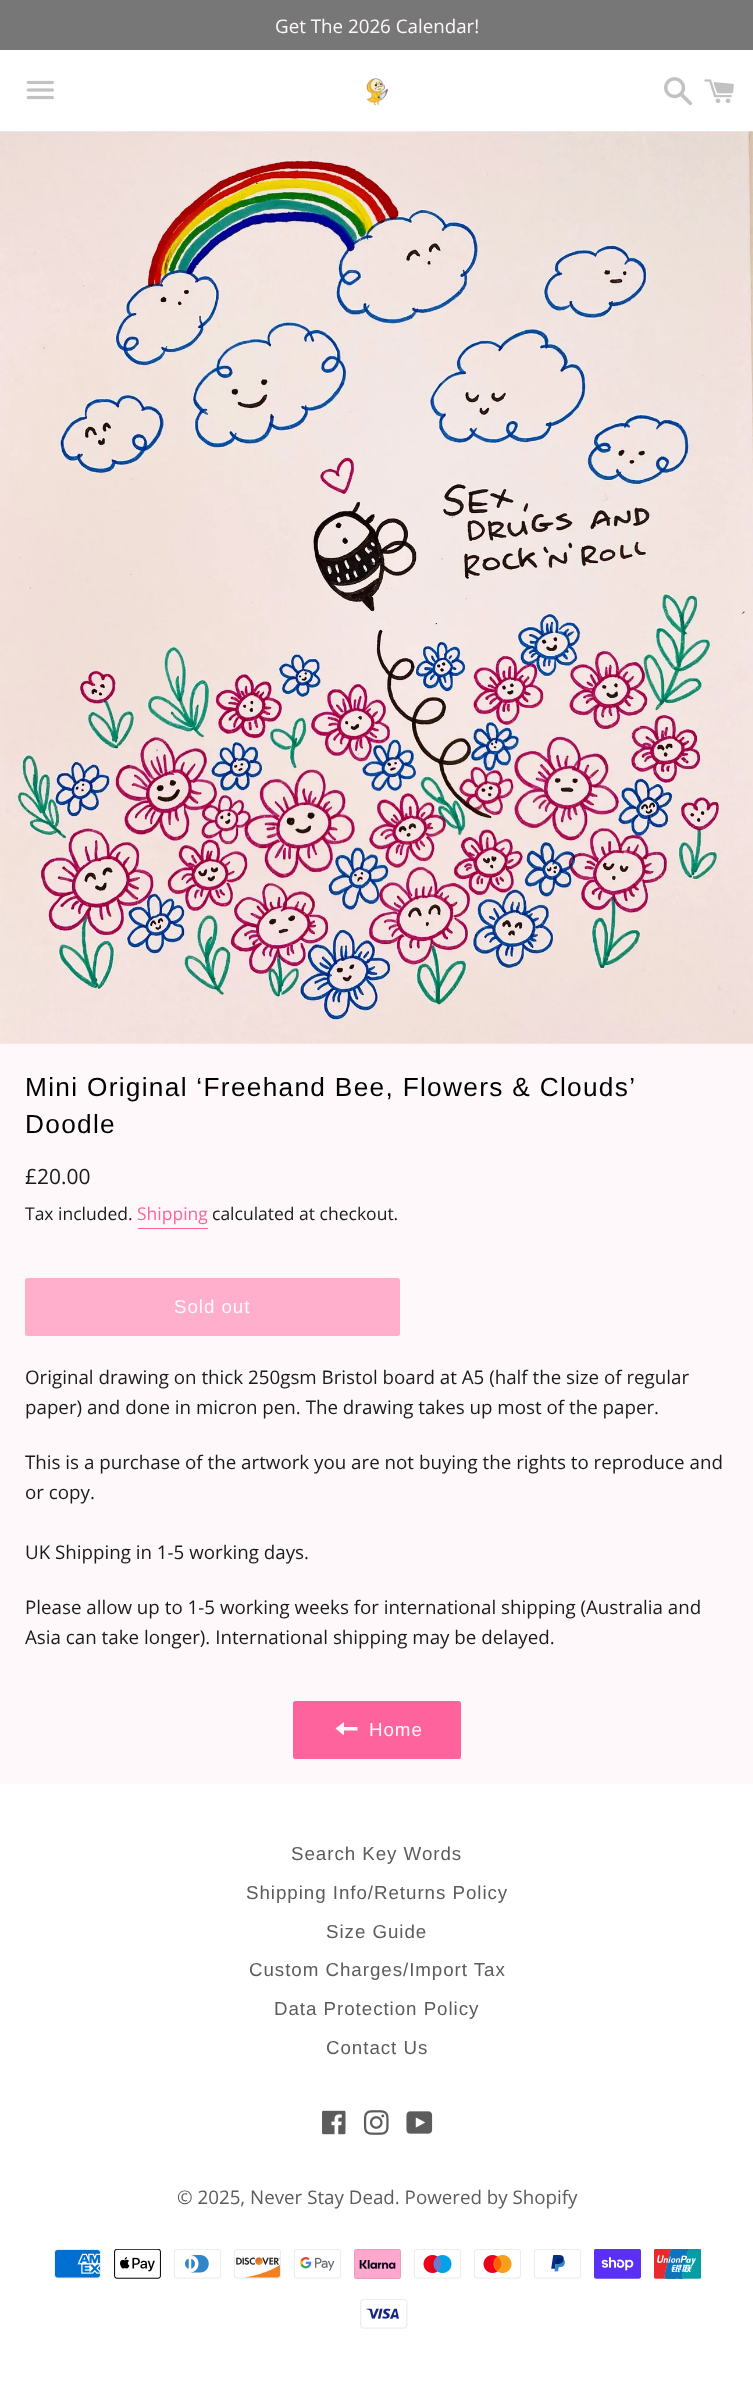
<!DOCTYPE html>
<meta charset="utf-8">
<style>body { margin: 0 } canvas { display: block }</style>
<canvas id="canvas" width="753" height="2407"></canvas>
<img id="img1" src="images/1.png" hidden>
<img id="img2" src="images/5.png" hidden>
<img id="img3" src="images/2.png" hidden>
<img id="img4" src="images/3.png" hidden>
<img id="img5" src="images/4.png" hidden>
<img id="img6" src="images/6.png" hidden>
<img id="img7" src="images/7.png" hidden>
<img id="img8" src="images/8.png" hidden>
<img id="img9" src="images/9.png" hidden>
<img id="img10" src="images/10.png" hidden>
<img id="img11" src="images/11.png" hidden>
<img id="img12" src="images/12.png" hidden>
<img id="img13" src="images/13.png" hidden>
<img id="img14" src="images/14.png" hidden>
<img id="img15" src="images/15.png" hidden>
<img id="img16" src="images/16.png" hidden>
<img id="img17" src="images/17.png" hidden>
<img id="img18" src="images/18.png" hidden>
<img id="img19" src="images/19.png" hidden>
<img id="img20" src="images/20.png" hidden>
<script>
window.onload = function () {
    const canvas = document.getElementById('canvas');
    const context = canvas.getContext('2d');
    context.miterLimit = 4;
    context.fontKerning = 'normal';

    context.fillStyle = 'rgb(254, 248, 250)';
    context.fillRect(0, 0, 753, 2407);
    context.fillStyle = 'rgb(120, 119, 119)';
    context.fillRect(0, 0, 753, 50);
    context.fillStyle = 'rgb(255, 255, 255)';
    context.fillRect(0, 50, 753, 81);
    context.drawImage(document.getElementById('img1'), 26, 80, 28, 20);
    context.drawImage(document.getElementById('img2'), 0, 131, 753, 913);
    context.drawImage(document.getElementById('img3'), 336, 78, 81, 54);
    context.drawImage(document.getElementById('img4'), 664, 77, 28, 29);
    context.drawImage(document.getElementById('img5'), 704, 79, 30, 24);
    context.fillStyle = 'rgb(255, 99, 158)';
    context.fillRect(138, 1228, 70, 1);
    context.fillStyle = 'rgb(255, 174, 204)';
    context.beginPath();
    context.roundRect(26.5, 1279.5, 372, 55, 1);
    context.fill();
    context.strokeStyle = 'rgb(255, 174, 204)';
    context.lineWidth = 3;
    context.stroke();
    context.fillStyle = 'rgb(255, 99, 158)';
    context.beginPath();
    context.roundRect(293, 1701, 168, 58, 2.5);
    context.fill();
    context.fillStyle = 'rgb(254, 248, 250)';
    context.beginPath();
    context.moveTo(344, 1727);
    context.lineTo(344, 1722);
    context.lineTo(335.5, 1728.5);
    context.lineTo(344, 1735.5);
    context.lineTo(344, 1730.5);
    context.lineTo(357.5, 1730.5);
    context.lineTo(357.5, 1727);
    context.closePath();
    context.fill();
    context.fillStyle = 'rgb(255, 255, 255)';
    context.fillRect(0, 1784, 753, 623);
    context.drawImage(document.getElementById('img6'), 322, 2110, 24, 25);
    context.drawImage(document.getElementById('img7'), 363, 2110, 26, 25);
    context.drawImage(document.getElementById('img8'), 406, 2111, 27, 23);
    context.drawImage(document.getElementById('img9'), 54, 2249, 47, 30);
    context.drawImage(document.getElementById('img10'), 114, 2249, 47, 30);
    context.drawImage(document.getElementById('img11'), 174, 2249, 47, 30);
    context.drawImage(document.getElementById('img12'), 234, 2249, 47, 30);
    context.drawImage(document.getElementById('img13'), 294, 2249, 47, 30);
    context.drawImage(document.getElementById('img14'), 354, 2249, 47, 30);
    context.drawImage(document.getElementById('img15'), 414, 2249, 47, 30);
    context.drawImage(document.getElementById('img16'), 474, 2249, 47, 30);
    context.drawImage(document.getElementById('img17'), 534, 2249, 47, 30);
    context.drawImage(document.getElementById('img18'), 594, 2249, 47, 30);
    context.drawImage(document.getElementById('img19'), 654, 2249, 47, 30);
    context.drawImage(document.getElementById('img20'), 360, 2299, 48, 30);
    context.font = '18.75px Open Sans';
    context.fillStyle = 'rgb(254, 248, 250)';
    context.fillText('Get The 2026 Calendar!', 275, 33);
    context.letterSpacing = '1.3px';
    context.font = '26.25px Liberation Sans';
    context.fillStyle = 'rgb(0, 0, 0)';
    context.fillText('Mini Original ‘Freehand Bee, Flowers & Clouds’', 25, 1096);
    context.fillText('Doodle', 25, 1133);
    context.letterSpacing = '0px';
    context.font = '21px Open Sans';
    context.fillStyle = 'rgb(26, 26, 26)';
    context.fillText('£20.00', 25, 1184);
    context.font = '17.5px Open Sans';
    context.fillText('Tax included.', 25, 1220);
    context.fillStyle = 'rgb(255, 99, 158)';
    context.fillText('Shipping', 137, 1220);
    context.fillStyle = 'rgb(26, 26, 26)';
    context.fillText('calculated at checkout.', 212, 1220);
    context.letterSpacing = '0.95px';
    context.font = '18.75px Liberation Sans';
    context.fillStyle = 'rgb(254, 248, 250)';
    context.fillText('Sold out', 174, 1313);
    context.letterSpacing = '0px';
    context.font = '18.75px Open Sans';
    context.fillStyle = 'rgb(26, 26, 26)';
    context.fillText('Original drawing on thick 250gsm Bristol board at A5 (half the size of regular', 25, 1384);
    context.fillText('paper) and done in micron pen. The drawing takes up most of the paper.', 25, 1414);
    context.fillText('This is a purchase of the artwork you are not buying the rights to reproduce and', 25, 1469);
    context.fillText('or copy.', 25, 1499);
    context.fillText('UK Shipping in 1-5 working days.', 25, 1559);
    context.fillText('Please allow up to 1-5 working weeks for international shipping (Australia and', 25, 1614);
    context.fillText('Asia can take longer). International shipping may be delayed.', 25, 1644);
    context.letterSpacing = '0.95px';
    context.font = '18.75px Liberation Sans';
    context.fillStyle = 'rgb(254, 248, 250)';
    context.fillText('Home', 369, 1736);
    context.fillStyle = 'rgb(92, 92, 92)';
    context.fillText('Search Key Words', 291, 1860);
    context.fillText('Shipping Info/Returns Policy', 246, 1899);
    context.fillText('Size Guide', 326, 1938);
    context.fillText('Custom Charges/Import Tax', 249, 1976);
    context.fillText('Data Protection Policy', 274, 2015);
    context.fillText('Contact Us', 326, 2054);
    context.letterSpacing = '0px';
    context.font = '18.75px Open Sans';
    context.fillText('© 2025, Never Stay Dead. Powered by Shopify', 177, 2204);
};
</script>
